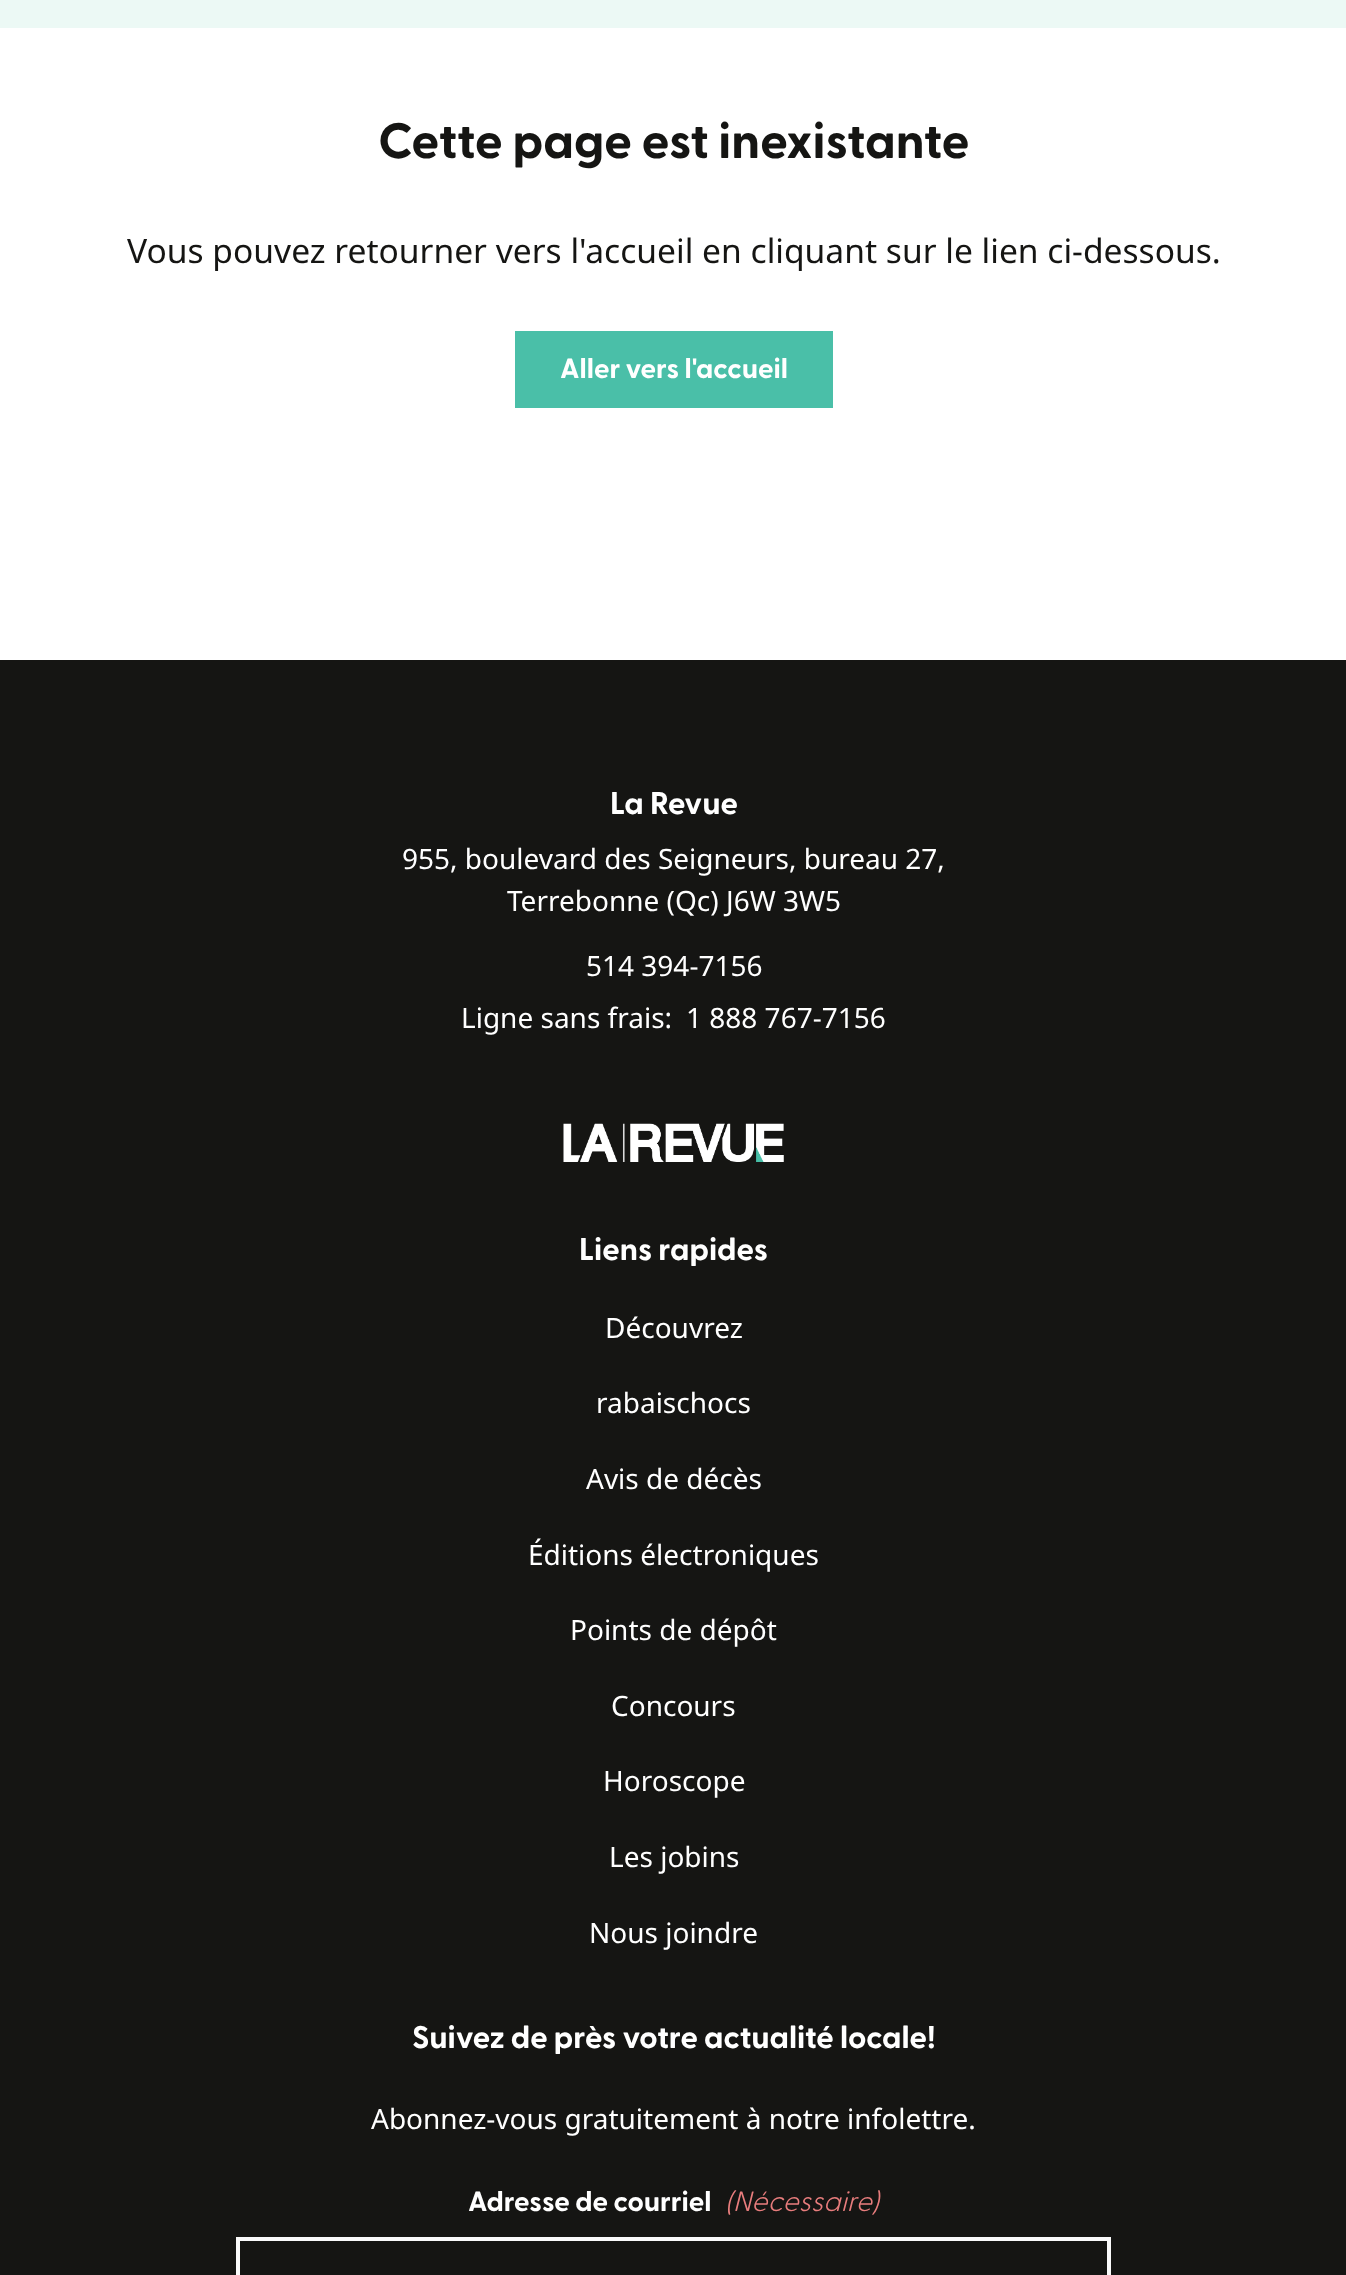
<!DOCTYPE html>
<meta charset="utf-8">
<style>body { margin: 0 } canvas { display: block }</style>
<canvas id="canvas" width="1346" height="2275"></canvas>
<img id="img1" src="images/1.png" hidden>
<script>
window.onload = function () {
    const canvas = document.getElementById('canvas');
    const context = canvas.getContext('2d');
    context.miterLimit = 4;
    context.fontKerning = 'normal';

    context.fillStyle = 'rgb(255, 255, 255)';
    context.fillRect(0, 0, 1346, 2275);
    context.fillStyle = 'rgb(236, 249, 245)';
    context.fillRect(0, 0, 1346, 28);
    context.fillStyle = 'rgb(74, 191, 168)';
    context.fillRect(515, 331, 318, 77);
    context.fillStyle = 'rgb(21, 21, 19)';
    context.fillRect(0, 660, 1346, 1615);
    context.drawImage(document.getElementById('img1'), 563, 1123, 221, 39);
    context.strokeStyle = 'rgb(250, 250, 250)';
    context.lineWidth = 4;
    context.strokeRect(238, 2239, 871, 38);
    context.font = 'bold 49.9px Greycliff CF';
    context.fillText('Cette page est inexistante', 378, 158);
    context.font = '33.6px Noto Sans';
    context.fillText('Vous pouvez retourner vers l\'accueil en cliquant sur le lien ci-dessous.', 127, 263);
    context.font = 'bold 28px Greycliff CF';
    context.fillStyle = 'rgb(255, 255, 255)';
    context.fillText('Aller vers l\'accueil', 560, 378);
    context.font = 'bold 31.5px Greycliff CF';
    context.fillText('La Revue', 610, 814);
    context.font = '28px Noto Sans';
    context.fillText('955, boulevard des Seigneurs, bureau 27,', 402, 869);
    context.fillText('Terrebonne (Qc) J6W 3W5', 507, 911);
    context.fillText('514 394-7156', 586, 976);
    context.fillText('Ligne sans frais:', 461, 1028);
    context.fillText('1 888 767-7156', 686, 1028);
    context.font = 'bold 31.5px Greycliff CF';
    context.fillText('Liens rapides', 579, 1260);
    context.font = '28px Noto Sans';
    context.fillText('Découvrez', 605, 1338);
    context.fillText('rabaischocs', 596, 1413);
    context.fillText('Avis de décès', 586, 1489);
    context.fillText('Éditions électroniques', 528, 1565);
    context.fillText('Points de dépôt', 570, 1640);
    context.fillText('Concours', 611, 1716);
    context.fillText('Horoscope', 603, 1791);
    context.fillText('Les jobins', 609, 1867);
    context.fillText('Nous joindre', 589, 1943);
    context.font = 'bold 31.5px Greycliff CF';
    context.fillText('Suivez de près votre actualité locale!', 412, 2048);
    context.font = '28px Noto Sans';
    context.fillText('Abonnez-vous gratuitement à notre infolettre.', 371, 2129);
    context.font = 'bold 28px Greycliff CF';
    context.fillText('Adresse de courriel', 468, 2211);
    context.font = 'italic 300 28px Greycliff CF';
    context.fillStyle = 'rgb(232, 125, 125)';
    context.fillText('(Nécessaire)', 725, 2211);
};
</script>
